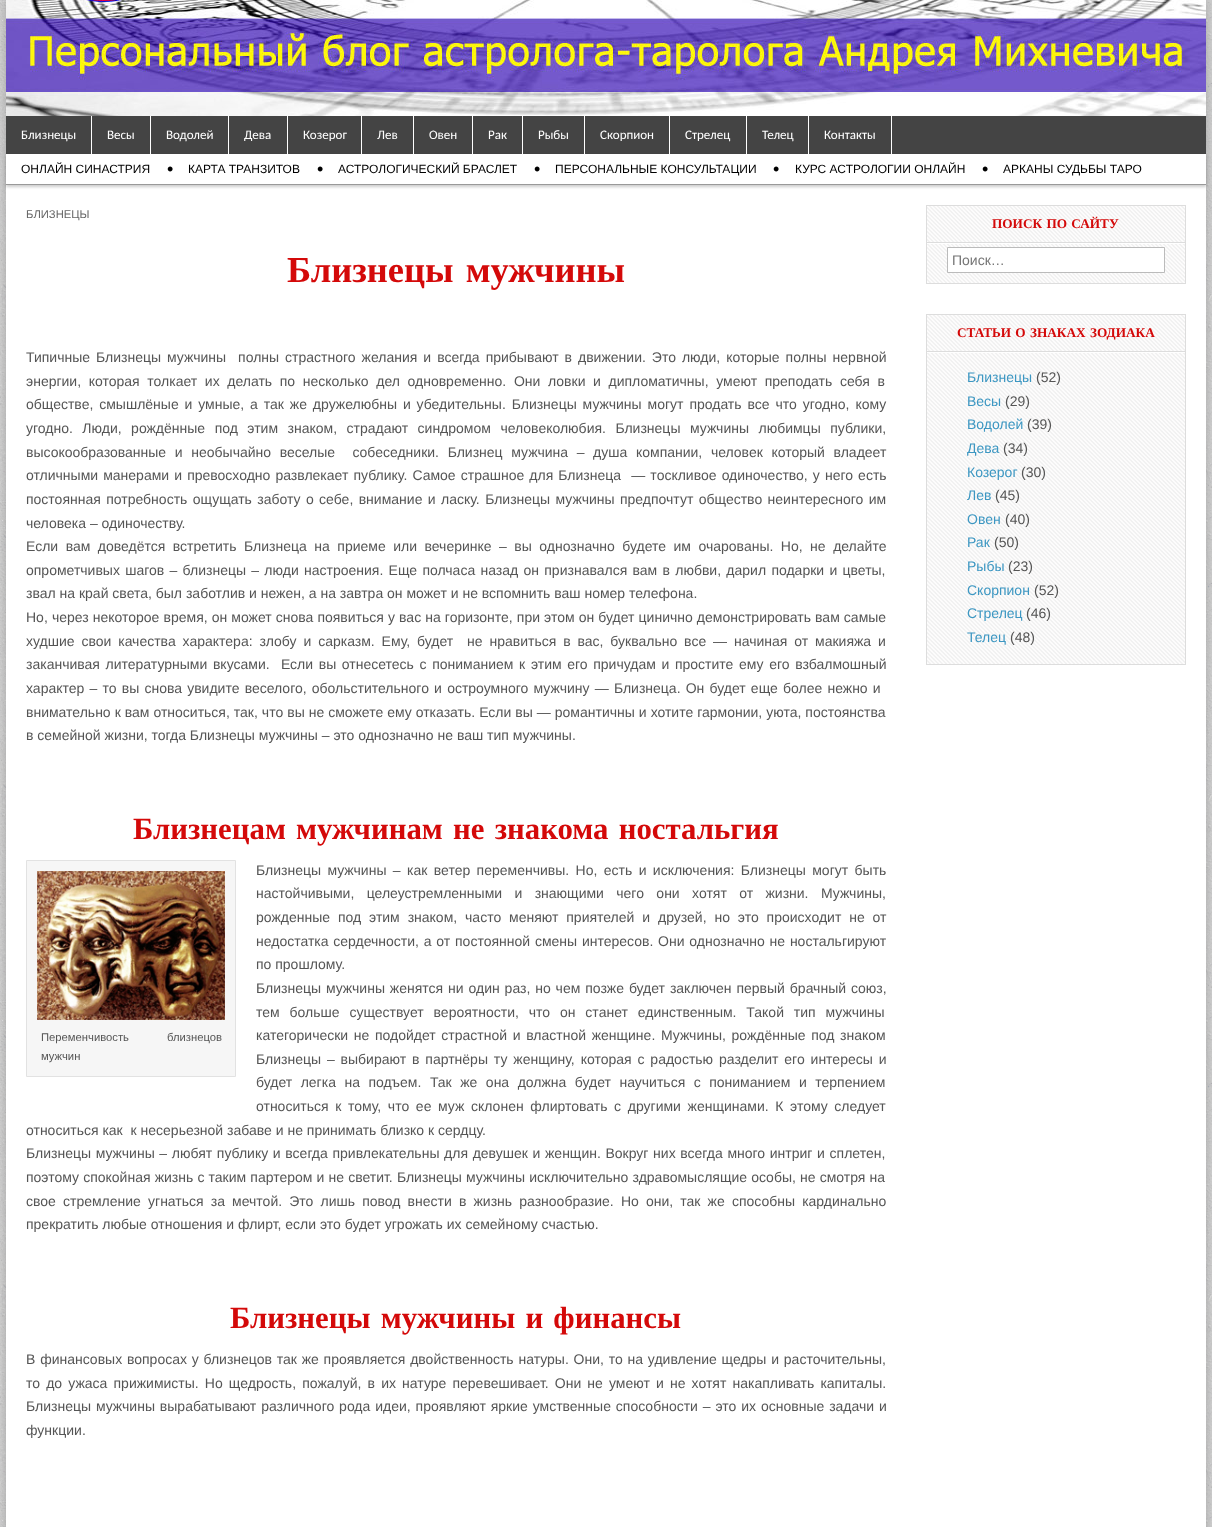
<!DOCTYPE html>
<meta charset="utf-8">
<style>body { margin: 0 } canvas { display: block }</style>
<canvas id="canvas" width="1212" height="1527"></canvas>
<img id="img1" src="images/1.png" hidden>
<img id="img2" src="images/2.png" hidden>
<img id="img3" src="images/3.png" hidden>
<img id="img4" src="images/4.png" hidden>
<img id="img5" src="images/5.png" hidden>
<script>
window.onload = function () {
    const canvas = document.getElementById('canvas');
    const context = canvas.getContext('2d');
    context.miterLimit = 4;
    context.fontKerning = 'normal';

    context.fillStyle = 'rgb(255, 255, 255)';
    context.fillRect(0, 0, 1212, 1527);
    context.drawImage(document.getElementById('img1'), 0, 0, 1212, 1527);
    context.fillStyle = 'rgba(0, 0, 0, 0.2)';
    context.filter = 'blur(5px)';
    context.beginPath();
    context.rect(6, 0, 1200, 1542);
    context.fill();
    context.filter = 'none';
    context.fillStyle = 'rgb(255, 255, 255)';
    context.fillRect(6, 154, 1200, 1373);
    context.drawImage(document.getElementById('img2'), 6, 0, 1200, 116);
    context.fillStyle = 'rgb(68, 68, 68)';
    context.fillRect(6, 116, 1200, 38);
    context.save();
    context.beginPath();
    context.moveTo(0, 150);
    context.lineTo(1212, 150);
    context.lineTo(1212, 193);
    context.lineTo(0, 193);
    context.closePath();
    context.moveTo(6, 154);
    context.lineTo(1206, 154);
    context.lineTo(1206, 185);
    context.lineTo(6, 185);
    context.closePath();
    context.clip('evenodd');
    context.fillStyle = 'rgba(0, 0, 0, 0.2)';
    context.filter = 'blur(1.5px)';
    context.beginPath();
    context.rect(6, 156, 1200, 31);
    context.fill();
    context.filter = 'none';
    context.restore();
    context.fillStyle = 'rgb(255, 255, 255)';
    context.fillRect(91, 116, 1, 38);
    context.fillRect(150, 116, 1, 38);
    context.fillRect(228, 116, 1, 38);
    context.fillRect(287, 116, 1, 38);
    context.fillRect(361, 116, 1, 38);
    context.fillRect(413, 116, 1, 38);
    context.fillRect(472, 116, 1, 38);
    context.fillRect(522, 116, 1, 38);
    context.fillRect(584, 116, 1, 38);
    context.fillRect(669, 116, 1, 38);
    context.fillRect(746, 116, 1, 38);
    context.fillRect(808, 116, 1, 38);
    context.fillRect(891, 116, 1, 38);
    context.fillStyle = 'rgb(153, 153, 153)';
    context.fillRect(6, 184, 1200, 1);
    context.fillStyle = 'rgb(246, 246, 246)';
    context.beginPath();
    context.rect(26.5, 860.5, 209, 216);
    context.fill();
    context.strokeStyle = 'rgb(226, 226, 226)';
    context.stroke();
    context.drawImage(document.getElementById('img3'), 37, 871, 188, 149);
    context.drawImage(document.getElementById('img4'), 927, 206, 258, 77);
    context.strokeStyle = 'rgb(221, 221, 221)';
    context.strokeRect(926.5, 205.5, 259, 78);
    context.fillStyle = 'rgb(255, 255, 255)';
    context.fillRect(927, 243, 258, 1);
    context.fillStyle = 'rgb(221, 221, 221)';
    context.fillRect(927, 242, 258, 1);
    context.fillStyle = 'rgb(255, 255, 255)';
    context.beginPath();
    context.rect(947.5, 247.5, 217, 25);
    context.fill();
    context.strokeStyle = 'rgb(187, 187, 187)';
    context.stroke();
    context.drawImage(document.getElementById('img5'), 927, 315, 258, 349);
    context.strokeStyle = 'rgb(221, 221, 221)';
    context.strokeRect(926.5, 314.5, 259, 350);
    context.fillRect(927, 352, 258, 1);
    context.fillStyle = 'rgb(221, 221, 221)';
    context.fillRect(927, 351, 258, 1);
    context.font = '13px Carlito';
    context.fillStyle = 'rgb(255, 255, 255)';
    context.fillText('Близнецы', 21, 139);
    context.fillText('Весы', 107, 139);
    context.fillText('Водолей', 166, 139);
    context.fillText('Дева', 244, 139);
    context.fillText('Козерог', 303, 139);
    context.fillText('Лев', 377, 139);
    context.fillText('Овен', 429, 139);
    context.fillText('Рак', 488, 139);
    context.fillText('Рыбы', 538, 139);
    context.fillText('Скорпион', 600, 139);
    context.fillText('Стрелец', 685, 139);
    context.fillText('Телец', 762, 139);
    context.fillText('Контакты', 824, 139);
    context.font = '12px Liberation Sans';
    context.fillStyle = 'rgb(0, 0, 0)';
    context.fillText('ОНЛАЙН СИНАСТРИЯ', 21, 173);
    context.font = '18px Liberation Sans';
    context.fillText('•', 167, 175);
    context.font = '12px Liberation Sans';
    context.fillText('КАРТА ТРАНЗИТОВ', 188, 173);
    context.font = '18px Liberation Sans';
    context.fillText('•', 317, 175);
    context.font = '12px Liberation Sans';
    context.fillText('АСТРОЛОГИЧЕСКИЙ БРАСЛЕТ', 338, 173);
    context.font = '18px Liberation Sans';
    context.fillText('•', 534, 175);
    context.font = '12px Liberation Sans';
    context.fillText('ПЕРСОНАЛЬНЫЕ КОНСУЛЬТАЦИИ', 555, 173);
    context.font = '18px Liberation Sans';
    context.fillText('•', 773, 175);
    context.font = '12px Liberation Sans';
    context.fillText('КУРС АСТРОЛОГИИ ОНЛАЙН', 795, 173);
    context.font = '18px Liberation Sans';
    context.fillText('•', 982, 175);
    context.font = '12px Liberation Sans';
    context.fillText('АРКАНЫ СУДЬБЫ ТАРО', 1003, 173);
    context.font = '11.25px Liberation Sans';
    context.fillStyle = 'rgb(102, 102, 102)';
    context.fillText('БЛИЗНЕЦЫ', 26, 218);
    context.wordSpacing = '3px';
    context.font = 'bold 36.5px Liberation Serif';
    context.fillStyle = 'rgb(212, 9, 9)';
    context.fillText('Близнецы мужчины', 287, 282);
    context.wordSpacing = '2.1px';
    context.font = '14px Liberation Sans';
    context.fillStyle = 'rgb(85, 85, 85)';
    context.fillText('Типичные Близнецы мужчины  полны страстного желания и всегда прибывают в движении. Это люди, которые полны нервной', 26, 362);
    context.wordSpacing = '3.75px';
    context.fillText('энергии, которая толкает их делать по несколько дел одновременно. Они ловки и дипломатичны, умеют преподать себя в', 26, 386);
    context.wordSpacing = '2px';
    context.fillText('обществе, смышлёные и умные, а так же дружелюбны и убедительны. Близнецы мужчины могут продать все что угодно, кому', 26, 409);
    context.wordSpacing = '5.6px';
    context.fillText('угодно. Люди, рождённые под этим знаком, страдают синдромом человеколюбия. Близнецы мужчины любимцы публики,', 26, 433);
    context.wordSpacing = '4.75px';
    context.fillText('высокообразованные и необычайно веселые  собеседники. Близнец мужчина – душа компании, человек который владеет', 26, 457);
    context.wordSpacing = '1.2px';
    context.fillText('отличными манерами и превосходно развлекает публику. Самое страшное для Близнеца  — тоскливое одиночество, у него есть', 26, 480);
    context.wordSpacing = '1.5px';
    context.fillText('постоянная потребность ощущать заботу о себе, внимание и ласку. Близнецы мужчины предпочтут общество неинтересного им', 26, 504);
    context.wordSpacing = '0px';
    context.fillText('человека – одиночеству.', 26, 528);
    context.wordSpacing = '3.6px';
    context.fillText('Если вам доведётся встретить Близнеца на приеме или вечеринке – вы однозначно будете им очарованы. Но, не делайте', 26, 551);
    context.wordSpacing = '1.4px';
    context.fillText('опрометчивых шагов – близнецы – люди настроения. Еще полчаса назад он признавался вам в любви, дарил подарки и цветы,', 26, 575);
    context.wordSpacing = '0px';
    context.fillText('звал на край света, был заботлив и нежен, а на завтра он может и не вспомнить ваш номер телефона.', 26, 598);
    context.wordSpacing = '0.2px';
    context.fillText('Но, через некоторое время, он может снова появиться у вас на горизонте, при этом он будет цинично демонстрировать вам самые', 26, 622);
    context.wordSpacing = '3px';
    context.fillText('худшие свои качества характера: злобу и сарказм. Ему, будет  не нравиться в вас, буквально все — начиная от макияжа и', 26, 646);
    context.wordSpacing = '1.75px';
    context.fillText('заканчивая литературными вкусами.  Если вы отнесетесь с пониманием к этим его причудам и простите ему его взбалмошный', 26, 669);
    context.wordSpacing = '1.3px';
    context.fillText('характер – то вы снова увидите веселого, обольстительного и остроумного мужчину — Близнеца. Он будет еще более нежно и', 26, 693);
    context.wordSpacing = '0.1px';
    context.fillText('внимательно к вам относиться, так, что вы не сможете ему отказать. Если вы — романтичны и хотите гармонии, уюта, постоянства', 26, 717);
    context.wordSpacing = '0px';
    context.fillText('в семейной жизни, тогда Близнецы мужчины – это однозначно не ваш тип мужчины.', 26, 740);
    context.wordSpacing = '2.5px';
    context.font = 'bold 30.8px Liberation Serif';
    context.fillStyle = 'rgb(212, 9, 9)';
    context.fillText('Близнецам мужчинам не знакома ностальгия', 133, 839);
    context.font = '14px Liberation Sans';
    context.fillStyle = 'rgb(85, 85, 85)';
    context.fillText('Близнецы мужчины – как ветер переменчивы. Но, есть и исключения: Близнецы могут быть', 256, 875);
    context.wordSpacing = '8.5px';
    context.fillText('настойчивыми, целеустремленными и знающими чего они хотят от жизни. Мужчины,', 256, 898);
    context.wordSpacing = '4px';
    context.fillText('рожденные под этим знаком, часто меняют приятелей и друзей, но это происходит не от', 256, 922);
    context.wordSpacing = '0.9px';
    context.fillText('недостатка сердечности, а от постоянной смены интересов. Они однозначно не ностальгируют', 256, 946);
    context.wordSpacing = '0px';
    context.fillText('по прошлому.', 256, 969);
    context.wordSpacing = '1px';
    context.fillText('Близнецы мужчины женятся ни один раз, но чем позже будет заключен первый брачный союз,', 256, 993);
    context.wordSpacing = '6px';
    context.fillText('тем больше существует вероятности, что он станет единственным. Такой тип мужчины', 256, 1017);
    context.wordSpacing = '1.75px';
    context.fillText('категорически не подойдет страстной и властной женщине. Мужчины, рождённые под знаком', 256, 1040);
    context.wordSpacing = '2px';
    context.fillText('Близнецы – выбирают в партнёры ту женщину, которая с радостью разделит его интересы и', 256, 1064);
    context.wordSpacing = '4.6px';
    context.fillText('будет легка на подъем. Так же она должна будет научиться с пониманием и терпением', 256, 1087);
    context.wordSpacing = '2.75px';
    context.fillText('относиться к тому, что ее муж склонен флиртовать с другими женщинами. К этому следует', 256, 1111);
    context.wordSpacing = '0px';
    context.fillText('относиться как  к несерьезной забаве и не принимать близко к сердцу.', 26, 1135);
    context.wordSpacing = '0.75px';
    context.fillText('Близнецы мужчины – любят публику и всегда привлекательны для девушек и женщин. Вокруг них всегда много интриг и сплетен,', 26, 1158);
    context.wordSpacing = '0.25px';
    context.fillText('поэтому спокойная жизнь с таким партером и не светит. Близнецы мужчины исключительно здравомыслящие особы, не смотря на', 26, 1182);
    context.wordSpacing = '3.25px';
    context.fillText('свое стремление угнаться за мечтой. Это лишь повод внести в жизнь разнообразие. Но они, так же способны кардинально', 26, 1206);
    context.wordSpacing = '0px';
    context.fillText('прекратить любые отношения и флирт, если это будет угрожать их семейному счастью.', 26, 1229);
    context.wordSpacing = '35px';
    context.font = '11.25px Liberation Sans';
    context.fillText('Переменчивость близнецов', 41, 1041);
    context.wordSpacing = '0px';
    context.fillText('мужчин', 41, 1060);
    context.wordSpacing = '2.5px';
    context.font = 'bold 30.8px Liberation Serif';
    context.fillStyle = 'rgb(212, 9, 9)';
    context.fillText('Близнецы мужчины и финансы', 230, 1328);
    context.wordSpacing = '0.9px';
    context.font = '14px Liberation Sans';
    context.fillStyle = 'rgb(85, 85, 85)';
    context.fillText('В финансовых вопросах у близнецов так же проявляется двойственность натуры. Они, то на удивление щедры и расточительны,', 26, 1364);
    context.wordSpacing = '2.25px';
    context.fillText('то до ужаса прижимисты. Но щедрость, пожалуй, в их натуре перевешивает. Они не умеют и не хотят накапливать капиталы.', 26, 1388);
    context.wordSpacing = '1px';
    context.fillText('Близнецы мужчины вырабатывают различного рода идеи, проявляют яркие умственные способности – это их основные задачи и', 26, 1411);
    context.wordSpacing = '0px';
    context.fillText('функции.', 26, 1435);
    context.wordSpacing = '1px';
    context.font = 'bold 13.25px Liberation Serif';
    context.fillStyle = 'rgb(212, 9, 9)';
    context.fillText('ПОИСК ПО САЙТУ', 992, 228);
    context.wordSpacing = '0px';
    context.font = '14px Liberation Sans';
    context.fillStyle = 'rgb(117, 117, 117)';
    context.fillText('Поиск…', 952, 265);
    context.wordSpacing = '1px';
    context.font = 'bold 13.25px Liberation Serif';
    context.fillStyle = 'rgb(212, 9, 9)';
    context.fillText('СТАТЬИ О ЗНАКАХ ЗОДИАКА', 957, 337);
    context.wordSpacing = '0px';
    context.font = '14px Liberation Sans';
    context.fillStyle = 'rgb(61, 151, 194)';
    context.fillText('Близнецы', 967, 382);
    context.fillStyle = 'rgb(85, 85, 85)';
    context.fillText('(52)', 1036, 382);
    context.fillStyle = 'rgb(61, 151, 194)';
    context.fillText('Весы', 967, 406);
    context.fillStyle = 'rgb(85, 85, 85)';
    context.fillText('(29)', 1005, 406);
    context.fillStyle = 'rgb(61, 151, 194)';
    context.fillText('Водолей', 967, 429);
    context.fillStyle = 'rgb(85, 85, 85)';
    context.fillText('(39)', 1027, 429);
    context.fillStyle = 'rgb(61, 151, 194)';
    context.fillText('Дева', 967, 453);
    context.fillStyle = 'rgb(85, 85, 85)';
    context.fillText('(34)', 1003, 453);
    context.fillStyle = 'rgb(61, 151, 194)';
    context.fillText('Козерог', 967, 477);
    context.fillStyle = 'rgb(85, 85, 85)';
    context.fillText('(30)', 1021, 477);
    context.fillStyle = 'rgb(61, 151, 194)';
    context.fillText('Лев', 967, 500);
    context.fillStyle = 'rgb(85, 85, 85)';
    context.fillText('(45)', 995, 500);
    context.fillStyle = 'rgb(61, 151, 194)';
    context.fillText('Овен', 967, 524);
    context.fillStyle = 'rgb(85, 85, 85)';
    context.fillText('(40)', 1005, 524);
    context.fillStyle = 'rgb(61, 151, 194)';
    context.fillText('Рак', 967, 547);
    context.fillStyle = 'rgb(85, 85, 85)';
    context.fillText('(50)', 994, 547);
    context.fillStyle = 'rgb(61, 151, 194)';
    context.fillText('Рыбы', 967, 571);
    context.fillStyle = 'rgb(85, 85, 85)';
    context.fillText('(23)', 1008, 571);
    context.fillStyle = 'rgb(61, 151, 194)';
    context.fillText('Скорпион', 967, 595);
    context.fillStyle = 'rgb(85, 85, 85)';
    context.fillText('(52)', 1034, 595);
    context.fillStyle = 'rgb(61, 151, 194)';
    context.fillText('Стрелец', 967, 618);
    context.fillStyle = 'rgb(85, 85, 85)';
    context.fillText('(46)', 1026, 618);
    context.fillStyle = 'rgb(61, 151, 194)';
    context.fillText('Телец', 967, 642);
    context.fillStyle = 'rgb(85, 85, 85)';
    context.fillText('(48)', 1010, 642);
};
</script>
